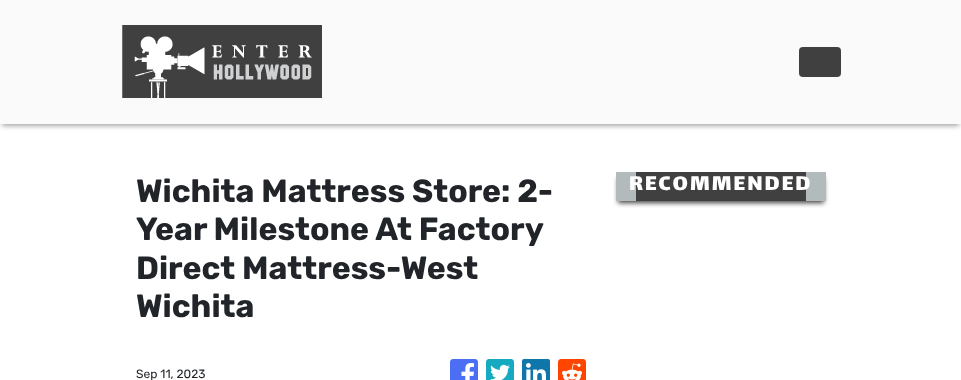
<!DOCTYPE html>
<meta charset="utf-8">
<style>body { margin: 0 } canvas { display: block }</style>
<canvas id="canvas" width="961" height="380"></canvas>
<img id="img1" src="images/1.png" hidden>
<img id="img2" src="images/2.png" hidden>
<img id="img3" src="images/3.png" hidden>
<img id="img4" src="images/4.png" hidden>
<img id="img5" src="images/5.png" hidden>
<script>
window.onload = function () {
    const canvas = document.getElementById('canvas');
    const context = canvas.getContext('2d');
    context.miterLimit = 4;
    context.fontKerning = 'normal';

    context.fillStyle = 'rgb(255, 255, 255)';
    context.fillRect(0, 0, 961, 380);
    context.fillStyle = 'rgba(0, 0, 0, 0.35)';
    context.filter = 'blur(2.5px)';
    context.beginPath();
    context.rect(2, 6, 957, 120);
    context.fill();
    context.filter = 'none';
    context.fillStyle = 'rgb(250, 250, 250)';
    context.fillRect(0, 0, 961, 124);
    context.drawImage(document.getElementById('img1'), 122, 25, 200, 73);
    context.fillStyle = 'rgb(64, 64, 65)';
    context.beginPath();
    context.roundRect(799, 47, 42, 30, 4);
    context.fill();
    context.drawImage(document.getElementById('img2'), 450, 359, 28, 21);
    context.drawImage(document.getElementById('img3'), 486, 359, 28, 21);
    context.drawImage(document.getElementById('img4'), 522, 359, 28, 21);
    context.drawImage(document.getElementById('img5'), 558, 359, 28, 21);
    context.fillRect(636, 172, 170, 29);
    context.fillStyle = 'rgb(178, 186, 187)';
    context.fillRect(806, 172, 20, 29);
    context.fillRect(616, 172, 20, 29);
    context.save();
    context.beginPath();
    context.moveTo(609, 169);
    context.lineTo(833, 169);
    context.lineTo(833, 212);
    context.lineTo(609, 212);
    context.closePath();
    context.moveTo(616, 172);
    context.lineTo(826, 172);
    context.lineTo(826, 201);
    context.lineTo(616, 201);
    context.closePath();
    context.clip('evenodd');
    context.fillStyle = 'rgb(64, 64, 65)';
    context.filter = 'blur(2.5px)';
    context.beginPath();
    context.rect(618, 178, 206, 25);
    context.fill();
    context.filter = 'none';
    context.restore();
    context.font = 'bold 32px Rubik';
    context.fillStyle = 'rgb(33, 37, 41)';
    context.fillText('Wichita Mattress Store: 2-', 136, 202);
    context.fillText('Year Milestone At Factory', 136, 240);
    context.fillText('Direct Mattress-West', 136, 279);
    context.fillText('Wichita', 136, 317);
    context.font = '12px Rubik';
    context.fillText('Sep 11, 2023', 136, 378);
    context.letterSpacing = '2px';
    context.font = '24px Lalezar';
    context.fillStyle = 'rgb(255, 255, 255)';
    context.fillText('RECOMMENDED', 629, 190);
};
</script>
